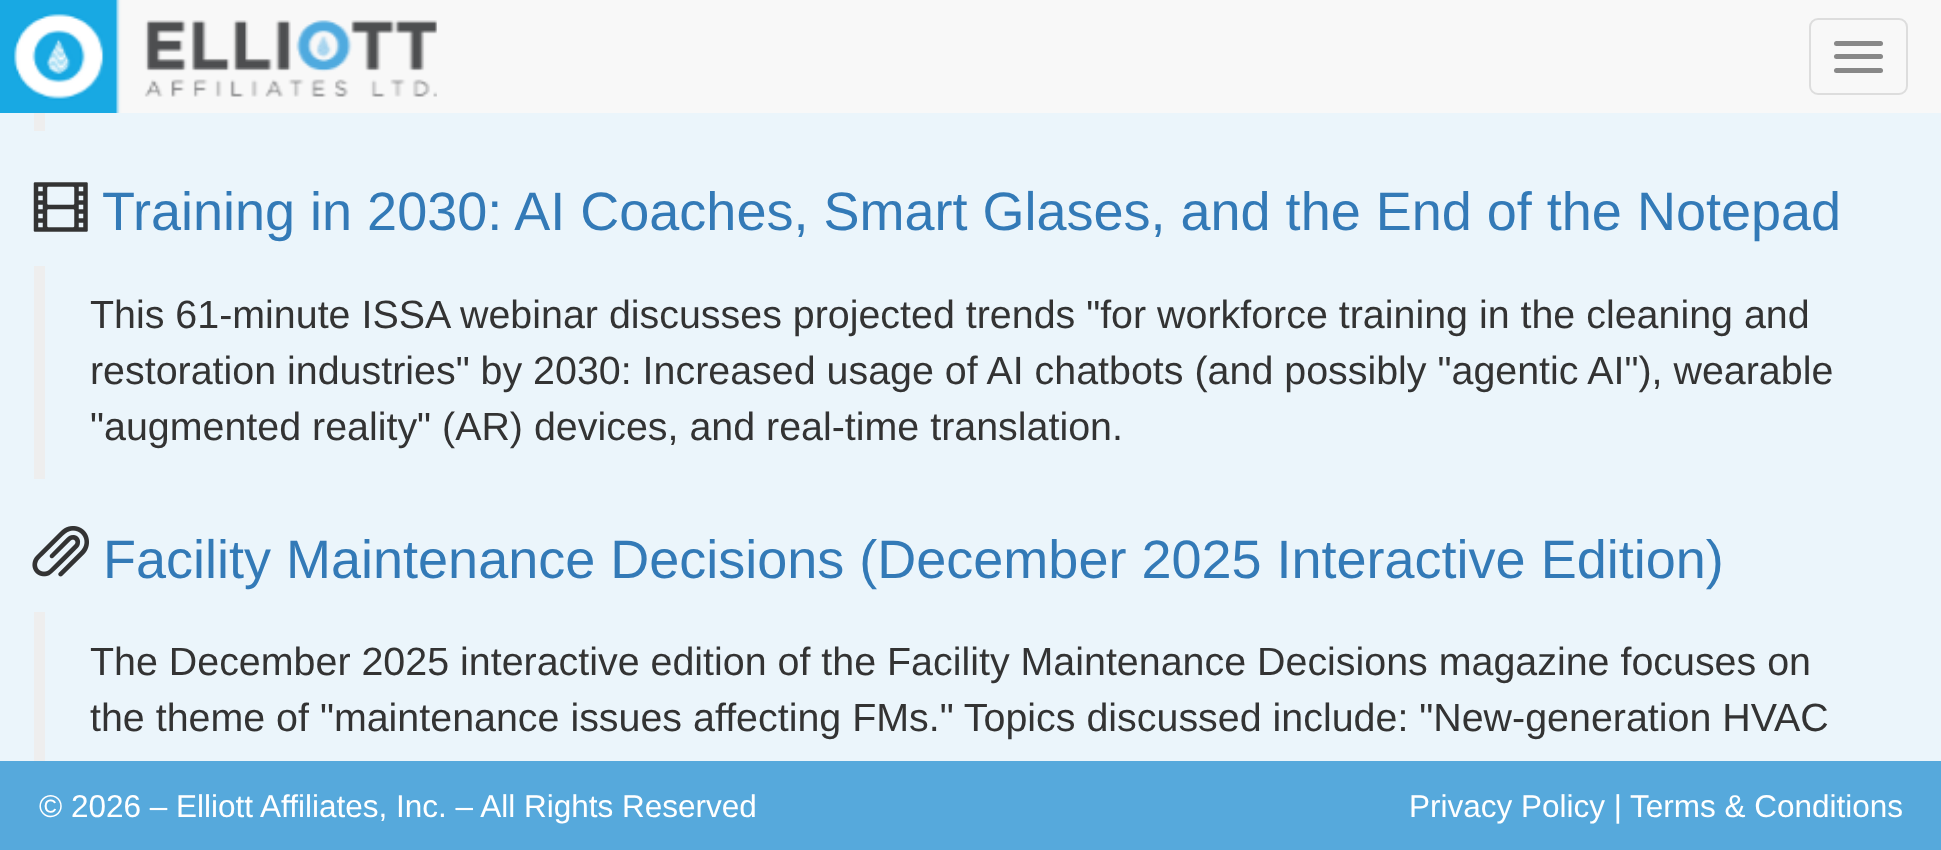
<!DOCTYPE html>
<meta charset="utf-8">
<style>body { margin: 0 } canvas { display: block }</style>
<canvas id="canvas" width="1941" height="850"></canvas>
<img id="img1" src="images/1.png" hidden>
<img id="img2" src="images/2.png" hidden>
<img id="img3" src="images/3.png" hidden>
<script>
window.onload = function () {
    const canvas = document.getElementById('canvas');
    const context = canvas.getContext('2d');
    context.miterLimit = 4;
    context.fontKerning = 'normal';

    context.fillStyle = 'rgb(235, 245, 251)';
    context.fillRect(0, 0, 1941, 850);
    context.fillStyle = 'rgb(248, 248, 248)';
    context.fillRect(116, 0, 1825, 113);
    context.drawImage(document.getElementById('img1'), 0, 0, 437, 113);
    context.beginPath();
    context.roundRect(1810, 19, 97, 75, 8);
    context.strokeStyle = 'rgb(221, 221, 221)';
    context.lineWidth = 2;
    context.stroke();
    context.fillStyle = 'rgb(136, 136, 136)';
    context.beginPath();
    context.roundRect(1834, 41, 49, 5, 2.5);
    context.fill();
    context.beginPath();
    context.roundRect(1834, 54, 49, 5, 2.5);
    context.fill();
    context.beginPath();
    context.roundRect(1834, 68, 49, 5, 2.5);
    context.fill();
    context.fillStyle = 'rgb(238, 238, 238)';
    context.fillRect(34, 113, 11, 18);
    context.drawImage(document.getElementById('img2'), 33, 182, 55, 50);
    context.fillRect(34, 266, 11, 213);
    context.drawImage(document.getElementById('img3'), 32, 526, 57, 51);
    context.fillRect(34, 612, 11, 149);
    context.fillStyle = 'rgb(86, 169, 220)';
    context.fillRect(0, 761, 1941, 89);
    context.font = '54px Liberation Sans';
    context.fillStyle = 'rgb(51, 122, 183)';
    context.fillText('Training in 2030: AI Coaches, Smart Glases, and the End of the Notepad', 102, 230);
    context.font = '39.4px Liberation Sans';
    context.fillStyle = 'rgb(51, 51, 51)';
    context.fillText('This 61-minute ISSA webinar discusses projected trends "for workforce training in the cleaning and', 90, 328);
    context.fillText('restoration industries" by 2030: Increased usage of AI chatbots (and possibly "agentic AI"), wearable', 90, 384);
    context.fillText('"augmented reality" (AR) devices, and real-time translation.', 90, 440);
    context.font = '54px Liberation Sans';
    context.fillStyle = 'rgb(51, 122, 183)';
    context.fillText('Facility Maintenance Decisions (December 2025 Interactive Edition)', 103, 578);
    context.font = '39.4px Liberation Sans';
    context.fillStyle = 'rgb(51, 51, 51)';
    context.fillText('The December 2025 interactive edition of the Facility Maintenance Decisions magazine focuses on', 90, 675);
    context.fillText('the theme of "maintenance issues affecting FMs." Topics discussed include: "New-generation HVAC', 90, 731);
    context.font = '31.5px Liberation Sans';
    context.fillStyle = 'rgb(255, 255, 255)';
    context.fillText('© 2026 – Elliott Affiliates, Inc. – All Rights Reserved', 39, 817);
    context.fillText('Privacy Policy |', 1409, 817);
    context.fillText('Terms & Conditions', 1630, 817);
};
</script>
